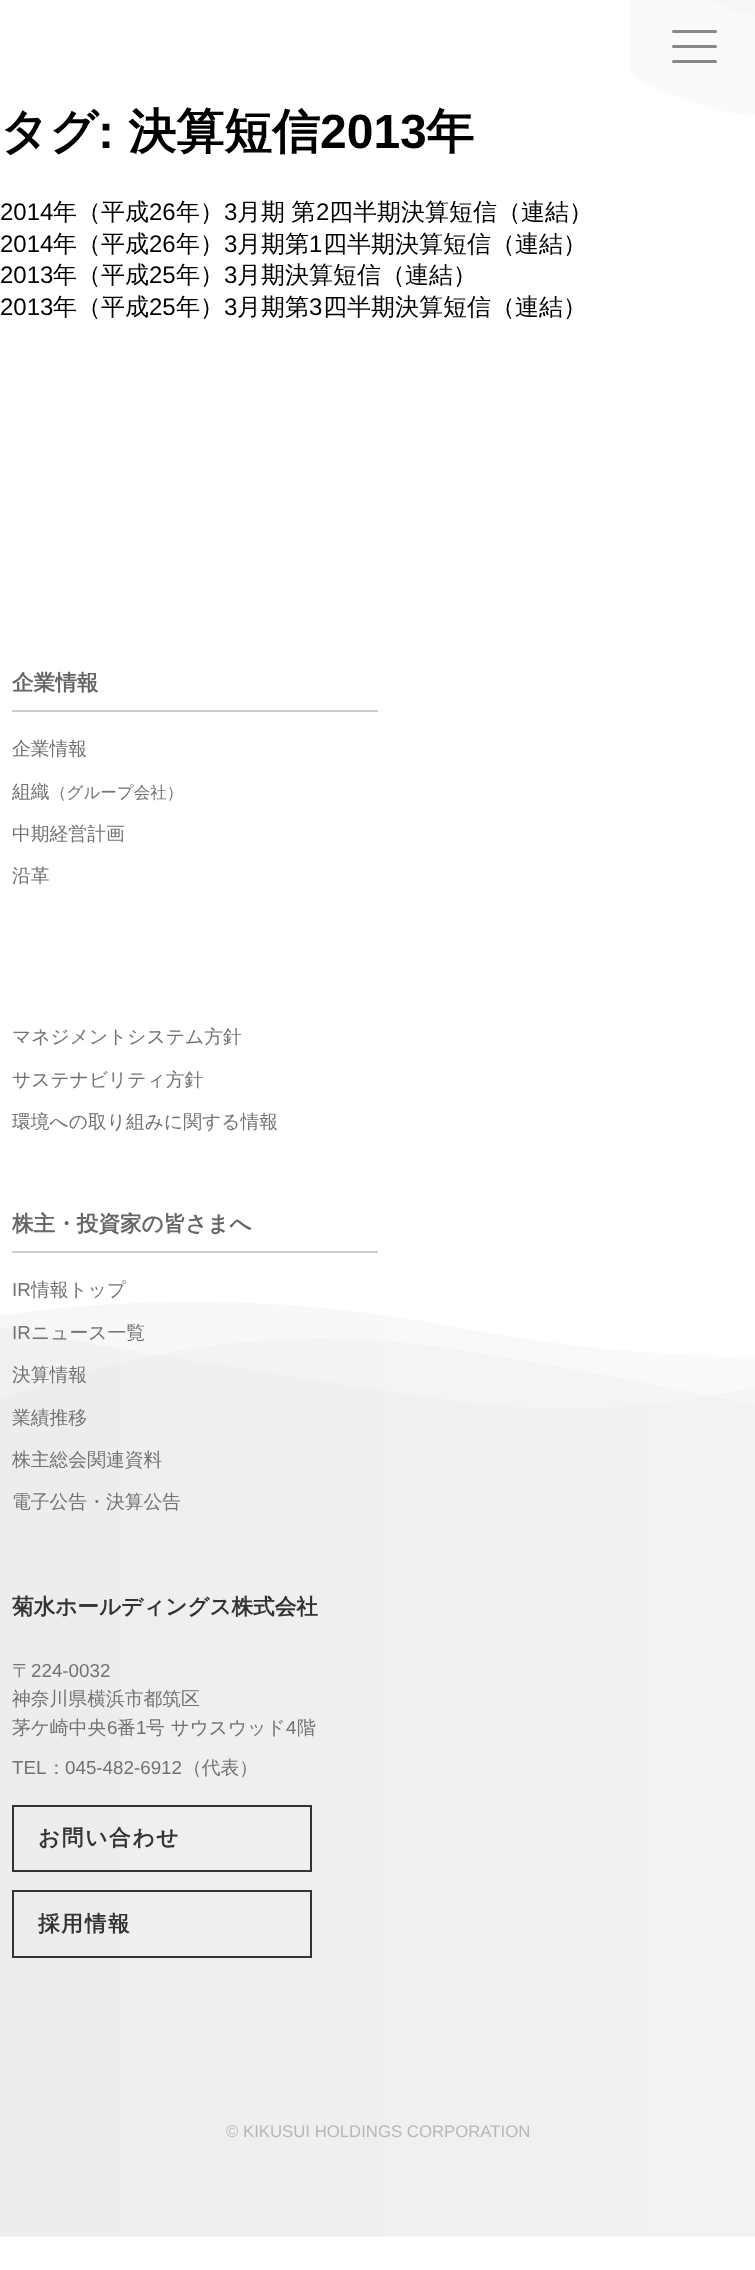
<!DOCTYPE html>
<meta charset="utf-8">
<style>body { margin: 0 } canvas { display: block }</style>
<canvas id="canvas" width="755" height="2270"></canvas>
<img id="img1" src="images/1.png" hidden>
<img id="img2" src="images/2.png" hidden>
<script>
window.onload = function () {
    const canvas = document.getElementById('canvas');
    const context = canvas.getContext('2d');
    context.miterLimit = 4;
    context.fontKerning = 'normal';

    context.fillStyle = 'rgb(255, 255, 255)';
    context.fillRect(0, 0, 755, 2270);
    context.drawImage(document.getElementById('img1'), 631, 0, 124, 116);
    context.fillStyle = 'rgb(136, 136, 136)';
    context.beginPath();
    context.roundRect(672, 45, 45, 3, 1.5);
    context.fill();
    context.beginPath();
    context.roundRect(672, 30, 45, 3, 1.5);
    context.fill();
    context.beginPath();
    context.roundRect(672, 60, 45, 3, 1.5);
    context.fill();
    context.fillStyle = 'rgb(204, 204, 204)';
    context.fillRect(12, 710, 366, 2);
    context.fillRect(12, 1251, 366, 2);
    context.drawImage(document.getElementById('img2'), 0, 1302, 755, 935);
    context.strokeStyle = 'rgb(51, 51, 51)';
    context.lineWidth = 2;
    context.strokeRect(13, 1806, 298, 65);
    context.strokeRect(13, 1891, 298, 66);
    context.font = 'bold 48px WenQuanYi Zen Hei';
    context.fillStyle = 'rgb(0, 0, 0)';
    context.fillText('タグ', 0, 148);
    context.font = 'bold 48px Liberation Sans';
    context.fillText(':', 98, 148);
    context.font = 'bold 48px WenQuanYi Zen Hei';
    context.fillText('決算短信', 128, 148);
    context.font = 'bold 48px Liberation Sans';
    context.fillText('2013', 320, 148);
    context.font = 'bold 48px WenQuanYi Zen Hei';
    context.fillText('年', 426, 148);
    context.font = '24px Liberation Sans';
    context.fillText('2014', 0, 220);
    context.font = '500 24px WenQuanYi Zen Hei';
    context.fillText('年（平成', 53, 220);
    context.font = '24px Liberation Sans';
    context.fillText('26', 149, 220);
    context.font = '500 24px WenQuanYi Zen Hei';
    context.fillText('年）', 176, 220);
    context.font = '24px Liberation Sans';
    context.fillText('3', 224, 220);
    context.wordSpacing = '-1px';
    context.font = '500 24px WenQuanYi Zen Hei';
    context.fillText('月期 第', 237, 220);
    context.wordSpacing = '0px';
    context.font = '24px Liberation Sans';
    context.fillText('2', 316, 220);
    context.font = '500 24px WenQuanYi Zen Hei';
    context.fillText('四半期決算短信（連結）', 329, 220);
    context.font = '24px Liberation Sans';
    context.fillText('2014', 0, 252);
    context.font = '500 24px WenQuanYi Zen Hei';
    context.fillText('年（平成', 53, 252);
    context.font = '24px Liberation Sans';
    context.fillText('26', 149, 252);
    context.font = '500 24px WenQuanYi Zen Hei';
    context.fillText('年）', 176, 252);
    context.font = '24px Liberation Sans';
    context.fillText('3', 224, 252);
    context.font = '500 24px WenQuanYi Zen Hei';
    context.fillText('月期第', 237, 252);
    context.font = '24px Liberation Sans';
    context.fillText('1', 309, 252);
    context.font = '500 24px WenQuanYi Zen Hei';
    context.fillText('四半期決算短信（連結）', 323, 252);
    context.font = '24px Liberation Sans';
    context.fillText('2013', 0, 283);
    context.font = '500 24px WenQuanYi Zen Hei';
    context.fillText('年（平成', 53, 283);
    context.font = '24px Liberation Sans';
    context.fillText('25', 149, 283);
    context.font = '500 24px WenQuanYi Zen Hei';
    context.fillText('年）', 176, 283);
    context.font = '24px Liberation Sans';
    context.fillText('3', 224, 283);
    context.font = '500 24px WenQuanYi Zen Hei';
    context.fillText('月期決算短信（連結）', 237, 283);
    context.font = '24px Liberation Sans';
    context.fillText('2013', 0, 315);
    context.font = '500 24px WenQuanYi Zen Hei';
    context.fillText('年（平成', 53, 315);
    context.font = '24px Liberation Sans';
    context.fillText('25', 149, 315);
    context.font = '500 24px WenQuanYi Zen Hei';
    context.fillText('年）', 176, 315);
    context.font = '24px Liberation Sans';
    context.fillText('3', 224, 315);
    context.font = '500 24px WenQuanYi Zen Hei';
    context.fillText('月期第', 237, 315);
    context.font = '24px Liberation Sans';
    context.fillText('3', 309, 315);
    context.font = '500 24px WenQuanYi Zen Hei';
    context.fillText('四半期決算短信（連結）', 323, 315);
    context.font = 'bold 21.6px WenQuanYi Zen Hei';
    context.fillStyle = 'rgb(102, 102, 102)';
    context.fillText('企業情報', 12, 690);
    context.font = '500 18.8px WenQuanYi Zen Hei';
    context.fillStyle = 'rgb(114, 114, 114)';
    context.fillText('企業情報', 12, 755);
    context.fillText('組織', 12, 798);
    context.font = '500 16.5px WenQuanYi Zen Hei';
    context.fillText('（グループ会社）', 50, 798);
    context.font = '500 18.8px WenQuanYi Zen Hei';
    context.fillText('中期経営計画', 12, 840);
    context.fillText('沿革', 12, 882);
    context.fillText('マネジメントシステム方針', 12, 1043);
    context.fillText('サステナビリティ方針', 12, 1086);
    context.fillText('環境への取り組みに関する情報', 12, 1128);
    context.font = 'bold 21.6px WenQuanYi Zen Hei';
    context.fillStyle = 'rgb(102, 102, 102)';
    context.fillText('株主・投資家の皆さまへ', 12, 1231);
    context.font = '18.8px Liberation Sans';
    context.fillStyle = 'rgb(114, 114, 114)';
    context.fillText('IR', 12, 1296);
    context.font = '500 18.8px WenQuanYi Zen Hei';
    context.fillText('情報トップ', 31, 1296);
    context.font = '18.8px Liberation Sans';
    context.fillText('IR', 12, 1339);
    context.font = '500 18.8px WenQuanYi Zen Hei';
    context.fillText('ニュース一覧', 31, 1339);
    context.fillText('決算情報', 12, 1381);
    context.fillText('業績推移', 12, 1424);
    context.fillText('株主総会関連資料', 12, 1466);
    context.fillText('電子公告・決算公告', 12, 1508);
    context.font = 'bold 21.6px WenQuanYi Zen Hei';
    context.fillStyle = 'rgb(51, 51, 51)';
    context.fillText('菊水ホールディングス株式会社', 12, 1614);
    context.font = '500 18.8px WenQuanYi Zen Hei';
    context.fillStyle = 'rgb(114, 114, 114)';
    context.fillText('〒', 12, 1677);
    context.font = '18.8px Liberation Sans';
    context.fillText('224-0032', 31, 1677);
    context.font = '500 18.8px WenQuanYi Zen Hei';
    context.fillText('神奈川県横浜市都筑区', 12, 1705);
    context.fillText('茅ケ崎中央', 12, 1734);
    context.font = '18.8px Liberation Sans';
    context.fillText('6', 107, 1734);
    context.font = '500 18.8px WenQuanYi Zen Hei';
    context.fillText('番', 117, 1734);
    context.font = '18.8px Liberation Sans';
    context.fillText('1', 136, 1734);
    context.font = '500 18.8px WenQuanYi Zen Hei';
    context.fillText('号 サウスウッド', 146, 1734);
    context.font = '18.8px Liberation Sans';
    context.fillText('4', 286, 1734);
    context.font = '500 18.8px WenQuanYi Zen Hei';
    context.fillText('階', 297, 1734);
    context.font = '18.8px Liberation Sans';
    context.fillText('TEL', 12, 1774);
    context.font = '500 18.8px WenQuanYi Zen Hei';
    context.fillText('：', 47, 1774);
    context.font = '18.8px Liberation Sans';
    context.fillText('045-482-6912', 65, 1774);
    context.font = '500 18.8px WenQuanYi Zen Hei';
    context.fillText('（代表）', 183, 1774);
    context.letterSpacing = '1.75px';
    context.font = 'bold 21.6px WenQuanYi Zen Hei';
    context.fillStyle = 'rgb(51, 51, 51)';
    context.fillText('お問い合わせ', 38, 1845);
    context.fillText('採用情報', 38, 1931);
    context.letterSpacing = '0px';
    context.font = '16.75px Liberation Sans';
    context.fillStyle = 'rgb(184, 183, 183)';
    context.fillText('© KIKUSUI HOLDINGS CORPORATION', 226, 2137);
};
</script>
